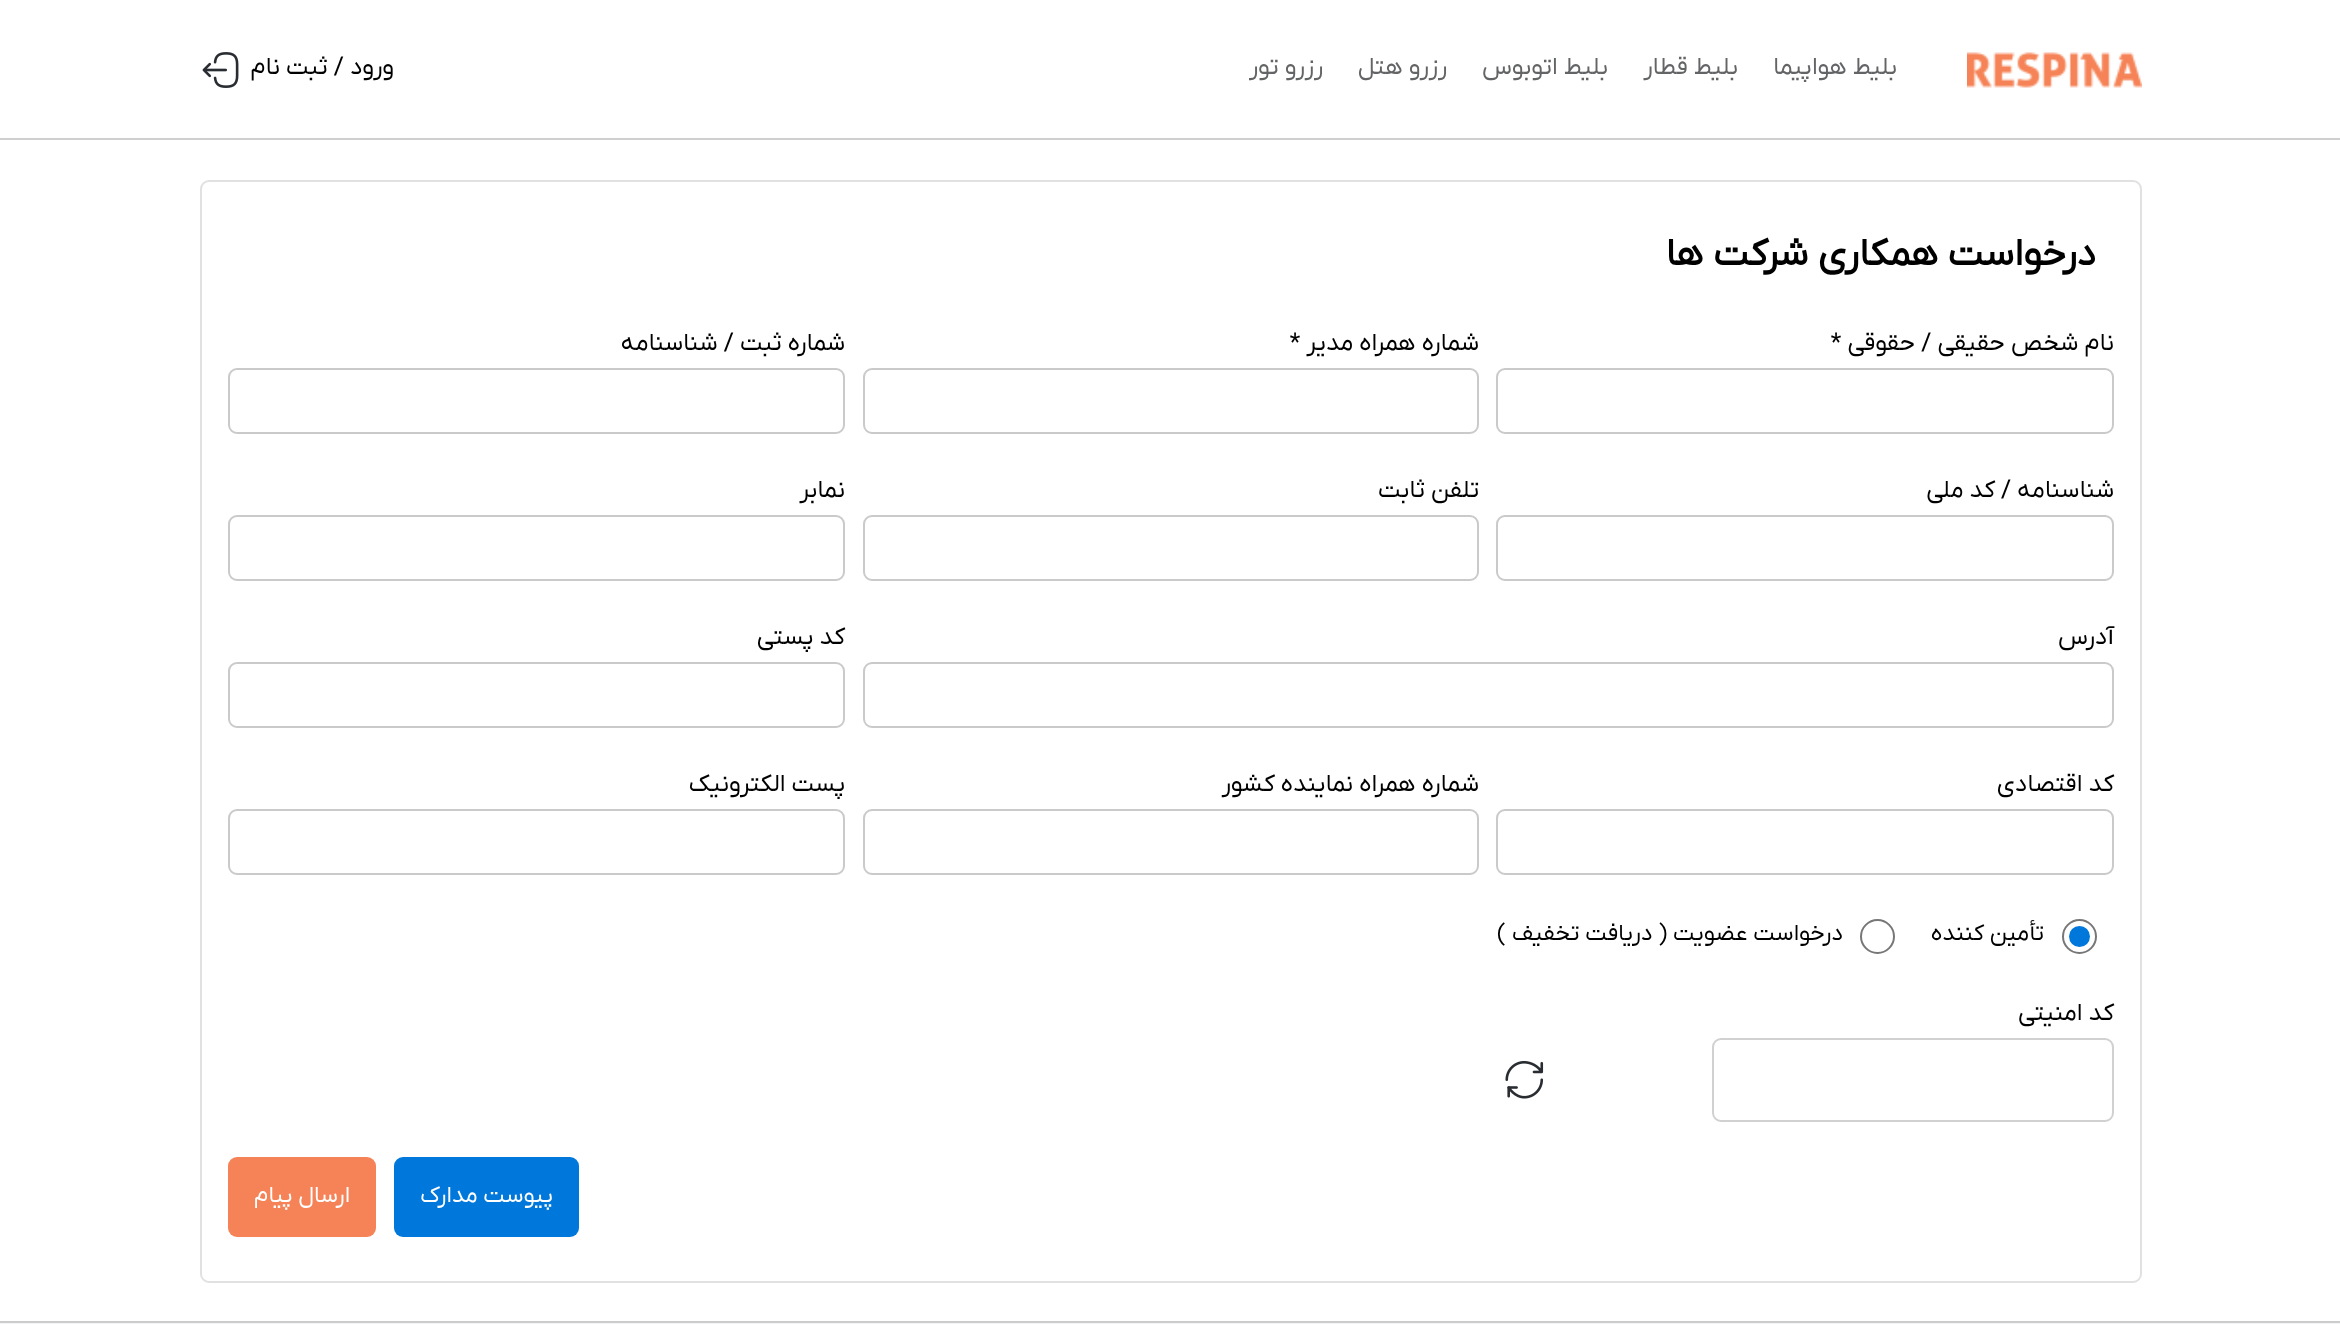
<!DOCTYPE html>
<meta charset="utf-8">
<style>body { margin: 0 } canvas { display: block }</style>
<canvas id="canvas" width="2340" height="1324"></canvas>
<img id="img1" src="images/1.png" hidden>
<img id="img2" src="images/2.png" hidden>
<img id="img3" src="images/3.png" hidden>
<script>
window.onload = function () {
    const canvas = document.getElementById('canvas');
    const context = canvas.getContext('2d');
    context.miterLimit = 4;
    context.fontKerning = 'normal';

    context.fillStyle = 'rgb(255, 255, 255)';
    context.fillRect(0, 0, 2340, 1324);
    context.fillStyle = 'rgb(207, 207, 207)';
    context.fillRect(0, 138, 2340, 2);
    context.drawImage(document.getElementById('img1'), 1967, 52, 175, 36);
    context.drawImage(document.getElementById('img2'), 202, 52, 37, 36);
    context.beginPath();
    context.roundRect(201, 181, 1940, 1101, 8);
    context.strokeStyle = 'rgb(225, 225, 225)';
    context.lineWidth = 2;
    context.stroke();
    context.beginPath();
    context.roundRect(1497, 369, 616, 64, 8);
    context.strokeStyle = 'rgb(202, 202, 202)';
    context.stroke();
    context.beginPath();
    context.roundRect(864, 369, 614, 64, 8);
    context.stroke();
    context.beginPath();
    context.roundRect(229, 369, 615, 64, 8);
    context.stroke();
    context.beginPath();
    context.roundRect(1497, 516, 616, 64, 8);
    context.stroke();
    context.beginPath();
    context.roundRect(864, 516, 614, 64, 8);
    context.stroke();
    context.beginPath();
    context.roundRect(229, 516, 615, 64, 8);
    context.stroke();
    context.beginPath();
    context.roundRect(864, 663, 1249, 64, 8);
    context.stroke();
    context.beginPath();
    context.roundRect(229, 663, 615, 64, 8);
    context.stroke();
    context.beginPath();
    context.roundRect(1497, 810, 616, 64, 8);
    context.stroke();
    context.beginPath();
    context.roundRect(864, 810, 614, 64, 8);
    context.stroke();
    context.beginPath();
    context.roundRect(229, 810, 615, 64, 8);
    context.stroke();
    context.beginPath();
    context.arc(2079.5, 936.5, 16.5, 0, 2 * Math.PI);
    context.strokeStyle = 'rgb(119, 119, 119)';
    context.stroke();
    context.fillStyle = 'rgb(0, 119, 219)';
    context.beginPath();
    context.arc(2079.5, 936.5, 10.5, 0, 2 * Math.PI);
    context.fill();
    context.beginPath();
    context.arc(1877.5, 936.5, 16.5, 0, 2 * Math.PI);
    context.stroke();
    context.beginPath();
    context.roundRect(1713, 1039, 400, 82, 8);
    context.strokeStyle = 'rgb(209, 209, 209)';
    context.stroke();
    context.drawImage(document.getElementById('img3'), 1505, 1060, 39, 39);
    context.beginPath();
    context.roundRect(394, 1157, 185, 80, 9);
    context.fill();
    context.fillStyle = 'rgb(245, 131, 87)';
    context.beginPath();
    context.roundRect(228, 1157, 148, 80, 9);
    context.fill();
    context.fillStyle = 'rgb(204, 204, 204)';
    context.fillRect(0, 1321, 2340, 2);
    context.fillStyle = 'rgb(243, 245, 247)';
    context.fillRect(0, 1323, 2340, 1);
    context.direction = 'rtl';
    context.font = '24.5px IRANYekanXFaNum';
    context.fillStyle = 'rgb(99, 100, 102)';
    context.fillText('بلیط هواپیما', 1897, 74);
    context.fillText('بلیط قطار', 1738, 74);
    context.fillText('بلیط اتوبوس', 1608, 74);
    context.fillText('رزرو هتل', 1447, 74);
    context.fillText('رزرو تور', 1323, 74);
    context.fillStyle = 'rgb(0, 0, 0)';
    context.fillText('ورود / ثبت نام', 394, 74);
    context.font = 'bold 38.5px IRANYekanXFaNum';
    context.fillText('درخواست همکاری شرکت ها', 2096, 265);
    context.font = '24.5px IRANYekanXFaNum';
    context.fillText('نام شخص حقیقی / حقوقی *', 2114, 350);
    context.fillText('شماره همراه مدیر *', 1479, 350);
    context.fillText('شماره ثبت / شناسنامه', 845, 350);
    context.fillText('شناسنامه / کد ملی', 2114, 497);
    context.fillText('تلفن ثابت', 1479, 497);
    context.fillText('نمابر', 845, 497);
    context.fillText('آدرس', 2114, 644);
    context.fillText('کد پستی', 845, 644);
    context.fillText('کد اقتصادی', 2114, 791);
    context.fillText('شماره همراه نماینده کشور', 1479, 791);
    context.fillText('پست الکترونیک', 845, 791);
    context.font = '23.3px IRANYekanXFaNum';
    context.fillText('تأمین کننده', 2044, 940);
    context.fillText('درخواست عضویت ( دریافت تخفیف )', 1843, 940);
    context.font = '24.5px IRANYekanXFaNum';
    context.fillText('کد امنیتی', 2114, 1020);
    context.font = '23.3px IRANYekanXFaNum';
    context.fillStyle = 'rgb(255, 255, 255)';
    context.fillText('پیوست مدارک', 553, 1202);
    context.fillText('ارسال پیام', 350, 1202);
};
</script>
